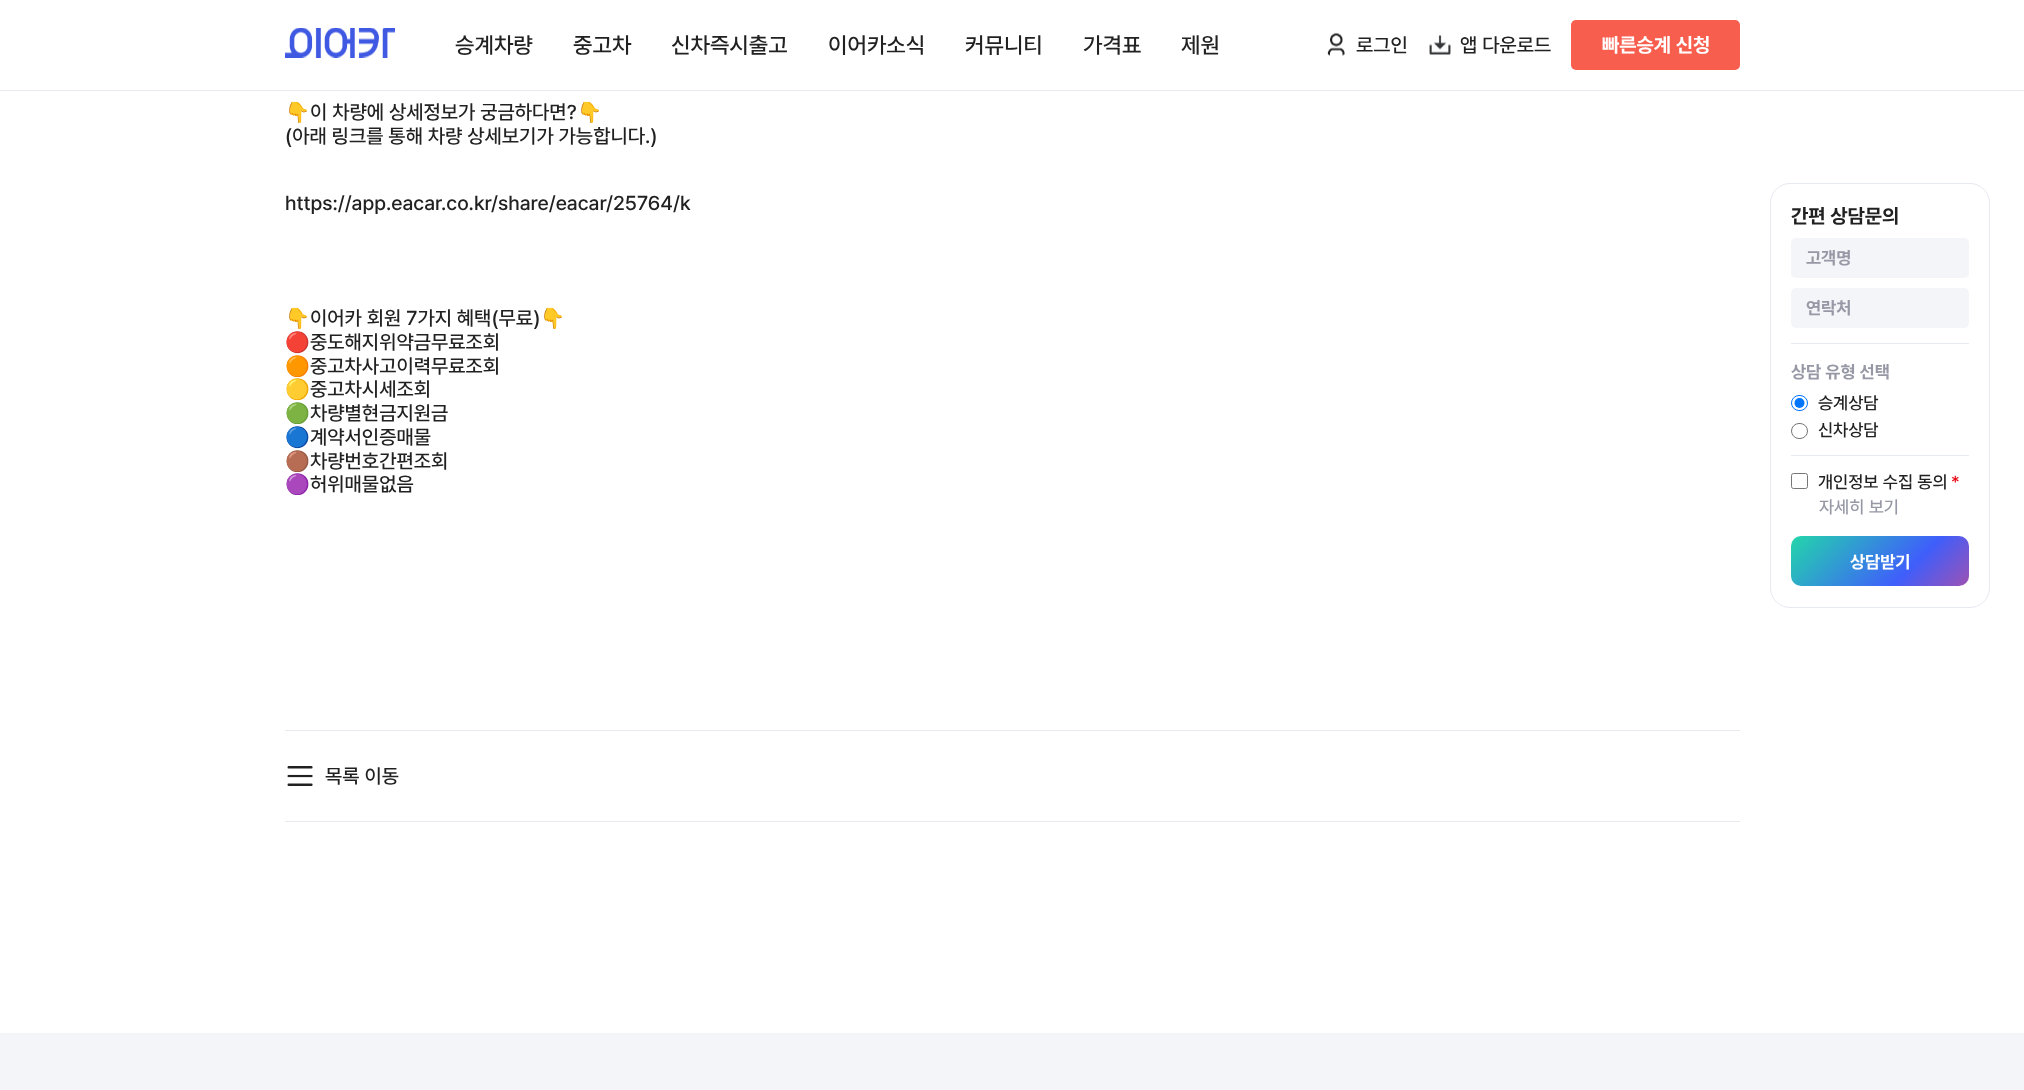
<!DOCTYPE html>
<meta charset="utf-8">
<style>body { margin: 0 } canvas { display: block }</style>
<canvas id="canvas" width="2024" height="1090"></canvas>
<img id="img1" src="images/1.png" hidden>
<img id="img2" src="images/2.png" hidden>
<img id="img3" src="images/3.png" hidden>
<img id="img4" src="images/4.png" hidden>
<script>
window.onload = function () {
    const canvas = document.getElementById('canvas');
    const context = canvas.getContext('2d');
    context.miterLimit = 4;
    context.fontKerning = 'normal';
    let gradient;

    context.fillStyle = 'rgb(255, 255, 255)';
    context.fillRect(0, 0, 2024, 1090);
    context.fillStyle = 'rgb(231, 233, 240)';
    context.fillRect(0, 90, 2024, 1);
    context.drawImage(document.getElementById('img1'), 285, 28, 110, 30);
    context.drawImage(document.getElementById('img2'), 1327, 32, 18, 24);
    context.drawImage(document.getElementById('img3'), 1429, 35, 22, 20);
    context.fillStyle = 'rgb(248, 94, 78)';
    context.beginPath();
    context.roundRect(1571, 20, 169, 50, 5);
    context.fill();
    context.fillStyle = 'rgb(231, 233, 240)';
    context.fillRect(285, 730, 1455, 1);
    context.drawImage(document.getElementById('img4'), 287, 766, 26, 20);
    context.fillRect(285, 821, 1455, 1);
    context.beginPath();
    context.roundRect(1770.5, 183.5, 219, 424, 19.5);
    context.strokeStyle = 'rgb(231, 233, 240)';
    context.stroke();
    context.fillStyle = 'rgb(244, 245, 248)';
    context.beginPath();
    context.roundRect(1791, 238, 178, 40, 5);
    context.fill();
    context.beginPath();
    context.roundRect(1791, 288, 178, 40, 5);
    context.fill();
    context.fillStyle = 'rgb(231, 233, 240)';
    context.fillRect(1791, 343, 178, 1);
    context.fillRect(1791, 455, 178, 1);
    context.beginPath();
    context.roundRect(1791.5, 395.5, 16, 15, 7.5);
    context.strokeStyle = 'rgb(0, 117, 255)';
    context.stroke();
    context.fillStyle = 'rgb(0, 117, 255)';
    context.beginPath();
    context.arc(1799.5, 403, 5, 0, 2 * Math.PI);
    context.fill();
    context.beginPath();
    context.roundRect(1791.5, 423.5, 16, 15, 7.5);
    context.strokeStyle = 'rgb(118, 118, 118)';
    context.stroke();
    context.beginPath();
    context.roundRect(1791.5, 473.5, 16, 15, 2);
    context.stroke();
    gradient = context.createLinearGradient(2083, 700, 1855, 473);
    gradient.addColorStop(0, 'rgb(248, 234, 119)');
    gradient.addColorStop(0.33, 'rgb(252, 70, 107)');
    gradient.addColorStop(0.67, 'rgb(63, 94, 251)');
    gradient.addColorStop(1, 'rgb(35, 213, 171)');
    context.fillStyle = gradient;
    context.beginPath();
    context.roundRect(1791, 536, 178, 50, 10);
    context.fill();
    context.fillStyle = 'rgb(244, 245, 248)';
    context.fillRect(0, 1033, 2024, 57);
    context.font = '500 22.5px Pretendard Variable';
    context.fillStyle = 'rgb(33, 33, 33)';
    context.fillText('승계차량', 455, 53);
    context.fillText('중고차', 573, 53);
    context.fillText('신차즉시출고', 671, 53);
    context.fillText('이어카소식', 828, 53);
    context.fillText('커뮤니티', 965, 53);
    context.fillText('가격표', 1083, 53);
    context.fillText('제원', 1181, 53);
    context.font = '500 20px Pretendard Variable';
    context.fillText('로그인', 1356, 52);
    context.fillText('앱 다운로드', 1460, 52);
    context.font = 'bold 20px Pretendard Variable';
    context.fillStyle = 'rgb(255, 255, 255)';
    context.fillText('빠른승계 신청', 1602, 52);
    context.font = '20px Noto Color Emoji';
    context.fillStyle = 'rgb(33, 33, 33)';
    context.fillText('👇', 285, 119);
    context.font = '500 20px Pretendard Variable';
    context.fillText('이 차량에 상세정보가 궁금하다면?', 310, 119);
    context.font = '20px Noto Color Emoji';
    context.fillText('👇', 577, 119);
    context.font = '500 20px Pretendard Variable';
    context.fillText('(아래 링크를 통해 차량 상세보기가 가능합니다.)', 285, 143);
    context.fillText('https://app.eacar.co.kr/share/eacar/25764/k', 285, 210);
    context.font = '20px Noto Color Emoji';
    context.fillText('👇', 285, 325);
    context.font = '500 20px Pretendard Variable';
    context.fillText('이어카 회원 7가지 혜택(무료)', 310, 325);
    context.font = '20px Noto Color Emoji';
    context.fillText('👇', 540, 325);
    context.fillText('🔴', 285, 349);
    context.font = '500 20px Pretendard Variable';
    context.fillText('중도해지위약금무료조회', 310, 349);
    context.font = '20px Noto Color Emoji';
    context.fillText('🟠', 285, 373);
    context.font = '500 20px Pretendard Variable';
    context.fillText('중고차사고이력무료조회', 310, 373);
    context.font = '20px Noto Color Emoji';
    context.fillText('🟡', 285, 396);
    context.font = '500 20px Pretendard Variable';
    context.fillText('중고차시세조회', 310, 396);
    context.font = '20px Noto Color Emoji';
    context.fillText('🟢', 285, 420);
    context.font = '500 20px Pretendard Variable';
    context.fillText('차량별현금지원금', 310, 420);
    context.font = '20px Noto Color Emoji';
    context.fillText('🔵', 285, 444);
    context.font = '500 20px Pretendard Variable';
    context.fillText('계약서인증매물', 310, 444);
    context.font = '20px Noto Color Emoji';
    context.fillText('🟤', 285, 468);
    context.font = '500 20px Pretendard Variable';
    context.fillText('차량번호간편조회', 310, 468);
    context.font = '20px Noto Color Emoji';
    context.fillText('🟣', 285, 491);
    context.font = '500 20px Pretendard Variable';
    context.fillText('허위매물없음', 310, 491);
    context.fillText('목록 이동', 325, 783);
    context.font = 'bold 20px Pretendard Variable';
    context.fillText('간편 상담문의', 1791, 223);
    context.font = 'bold 17.5px Pretendard Variable';
    context.fillStyle = 'rgb(150, 152, 165)';
    context.fillText('고객명', 1806, 264);
    context.fillText('연락처', 1806, 314);
    context.fillText('상담 유형 선택', 1791, 378);
    context.font = '500 17.5px Pretendard Variable';
    context.fillStyle = 'rgb(33, 33, 33)';
    context.fillText('승계상담', 1818, 409);
    context.fillText('신차상담', 1818, 436);
    context.fillText('개인정보 수집 동의', 1818, 488);
    context.fillStyle = 'rgb(231, 10, 24)';
    context.fillText('*', 1951, 488);
    context.fillStyle = 'rgb(150, 152, 165)';
    context.fillText('자세히 보기', 1819, 513);
    context.font = 'bold 17.5px Pretendard Variable';
    context.fillStyle = 'rgb(255, 255, 255)';
    context.fillText('상담받기', 1850, 568);
};
</script>
